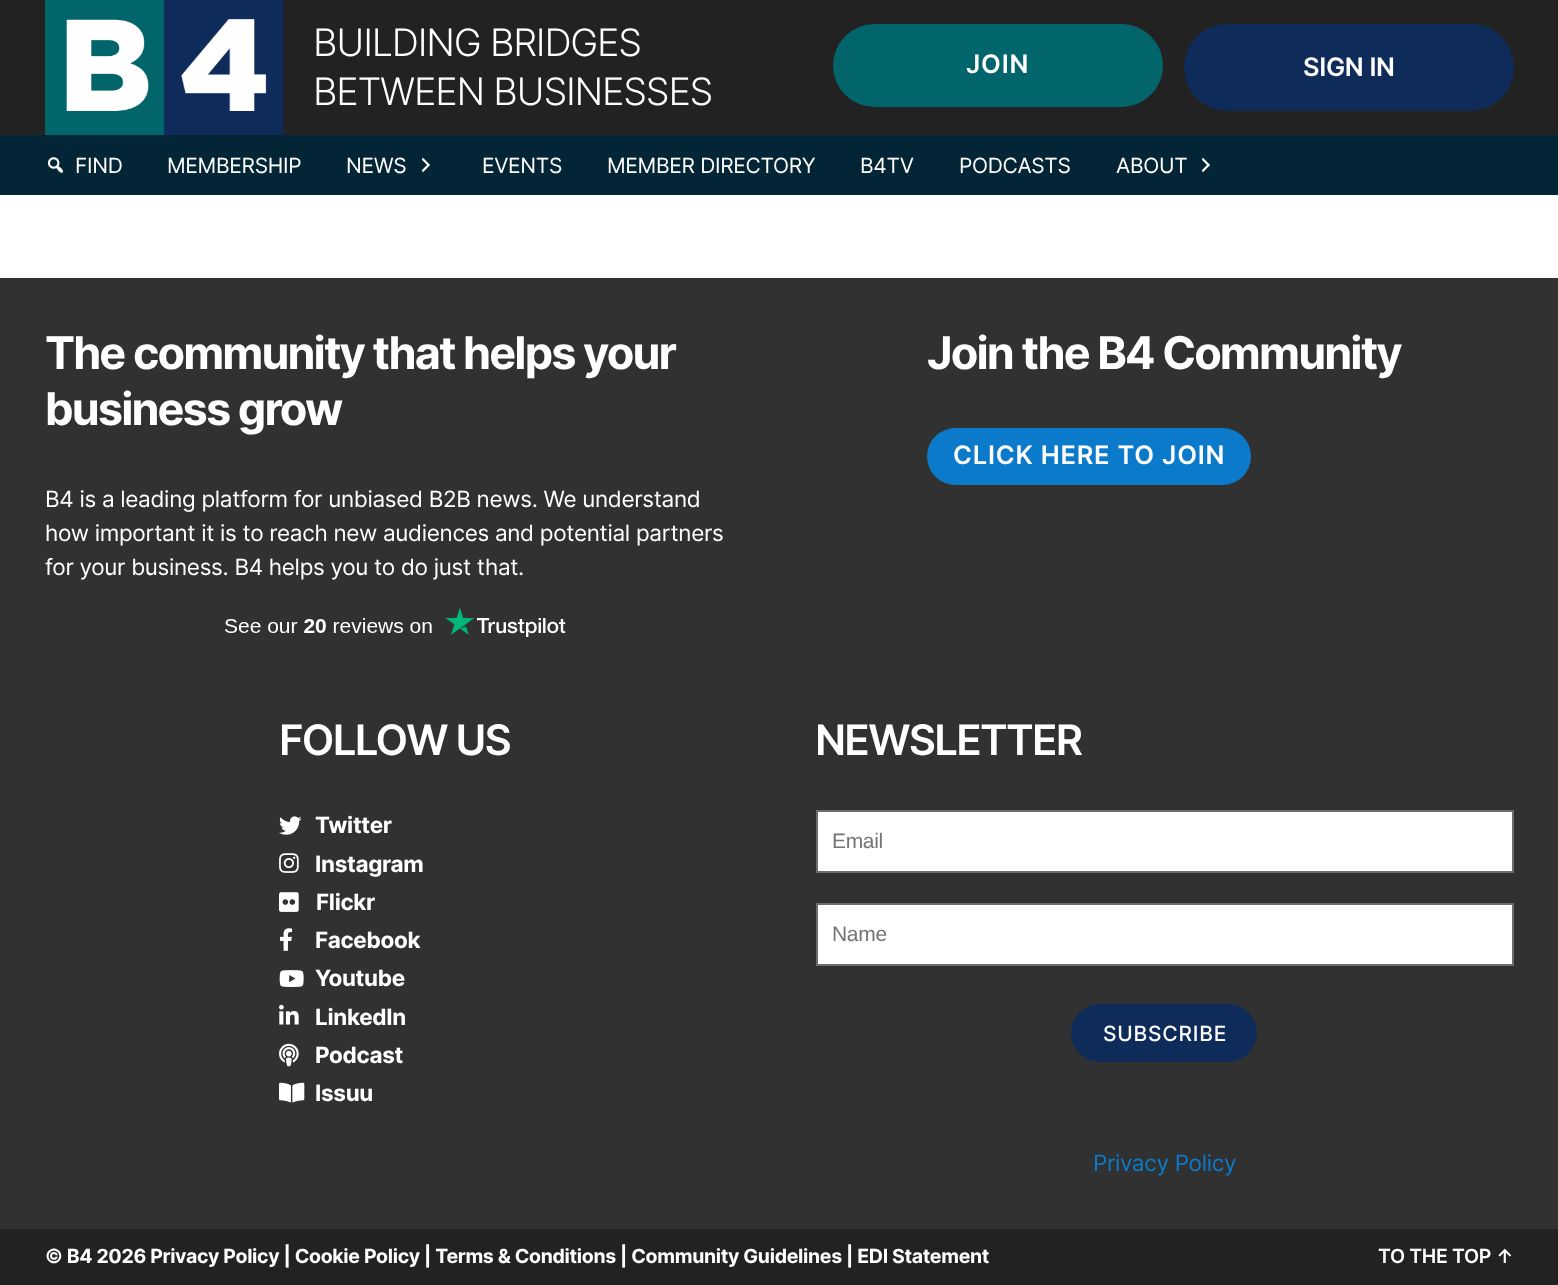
<!DOCTYPE html>
<meta charset="utf-8">
<style>body { margin: 0 } canvas { display: block }</style>
<canvas id="canvas" width="1558" height="1285"></canvas>
<img id="img1" src="images/1.png" hidden>
<img id="img2" src="images/2.png" hidden>
<img id="img3" src="images/3.png" hidden>
<img id="img4" src="images/4.png" hidden>
<img id="img5" src="images/5.png" hidden>
<img id="img6" src="images/6.png" hidden>
<img id="img7" src="images/7.png" hidden>
<img id="img8" src="images/8.png" hidden>
<img id="img9" src="images/9.png" hidden>
<img id="img10" src="images/10.png" hidden>
<img id="img11" src="images/11.png" hidden>
<img id="img12" src="images/12.png" hidden>
<script>
window.onload = function () {
    const canvas = document.getElementById('canvas');
    const context = canvas.getContext('2d');
    context.miterLimit = 4;
    context.fontKerning = 'normal';

    context.fillStyle = 'rgb(255, 255, 255)';
    context.fillRect(0, 0, 1558, 1285);
    context.fillStyle = 'rgb(34, 34, 34)';
    context.fillRect(0, 0, 1558, 135);
    context.drawImage(document.getElementById('img1'), 45, 0, 239, 135);
    context.fillStyle = 'rgb(2, 101, 107)';
    context.beginPath();
    context.roundRect(833, 24, 330, 83, 41.5);
    context.fill();
    context.fillStyle = 'rgb(14, 43, 90)';
    context.beginPath();
    context.roundRect(1184, 24, 330, 87, 43.5);
    context.fill();
    context.fillStyle = 'rgb(3, 37, 54)';
    context.fillRect(0, 135, 1558, 60);
    context.drawImage(document.getElementById('img2'), 47, 157, 17, 16);
    context.drawImage(document.getElementById('img3'), 421, 157, 9, 16);
    context.drawImage(document.getElementById('img3'), 1201, 157, 9, 16);
    context.fillStyle = 'rgb(49, 49, 49)';
    context.fillRect(0, 278, 1558, 951);
    context.drawImage(document.getElementById('img4'), 225, 608, 341, 29);
    context.fillStyle = 'rgb(11, 122, 202)';
    context.beginPath();
    context.roundRect(927, 428, 324, 57, 28.5);
    context.fill();
    context.drawImage(document.getElementById('img5'), 279, 816, 23, 19);
    context.drawImage(document.getElementById('img6'), 279, 853, 20, 20);
    context.drawImage(document.getElementById('img7'), 279, 892, 20, 20);
    context.drawImage(document.getElementById('img8'), 280, 928, 13, 23);
    context.drawImage(document.getElementById('img9'), 279, 970, 25, 17);
    context.drawImage(document.getElementById('img10'), 279, 1004, 20, 21);
    context.drawImage(document.getElementById('img11'), 279, 1043, 20, 24);
    context.drawImage(document.getElementById('img12'), 279, 1082, 26, 21);
    context.fillStyle = 'rgb(255, 255, 255)';
    context.beginPath();
    context.rect(817, 811, 696, 61);
    context.fill();
    context.strokeStyle = 'rgb(111, 108, 103)';
    context.lineWidth = 2;
    context.stroke();
    context.beginPath();
    context.rect(817, 904, 696, 61);
    context.fill();
    context.stroke();
    context.fillStyle = 'rgb(14, 43, 90)';
    context.beginPath();
    context.roundRect(1071, 1004, 186, 58, 29);
    context.fill();
    context.fillStyle = 'rgb(34, 34, 34)';
    context.fillRect(0, 1229, 1558, 56);
    context.letterSpacing = '-1.2px';
    context.font = '300 37.75px Inter';
    context.fillStyle = 'rgb(255, 255, 255)';
    context.fillText('BUILDING BRIDGES', 313, 56);
    context.fillText('BETWEEN BUSINESSES', 313, 105);
    context.letterSpacing = '0.8px';
    context.font = '600 25.5px Inter';
    context.fillText('JOIN', 966, 73);
    context.letterSpacing = '-0.32px';
    context.fillText('SIGN IN', 1303, 76);
    context.font = '21px Inter';
    context.fillText('FIND', 75, 173);
    context.fillText('MEMBERSHIP', 167, 173);
    context.fillText('NEWS', 346, 173);
    context.fillText('EVENTS', 482, 173);
    context.fillText('MEMBER DIRECTORY', 607, 173);
    context.fillText('B4TV', 860, 173);
    context.fillText('PODCASTS', 959, 173);
    context.fillText('ABOUT', 1116, 173);
    context.letterSpacing = '-1.9px';
    context.font = 'bold 45px Inter';
    context.fillText('The community that helps your', 45, 369);
    context.fillText('business grow', 45, 425);
    context.letterSpacing = '-0.32px';
    context.font = '22.5px Inter';
    context.fillText('B4 is a leading platform for unbiased B2B news. We understand', 45, 507);
    context.fillText('how important it is to reach new audiences and potential partners', 45, 541);
    context.fillText('for your business. B4 helps you to do just that.', 45, 575);
    context.letterSpacing = '-1.9px';
    context.font = 'bold 45px Inter';
    context.fillText('Join the B4 Community', 927, 369);
    context.letterSpacing = '0.8px';
    context.font = '600 25.5px Inter';
    context.fillText('CLICK HERE TO JOIN', 953, 464);
    context.letterSpacing = '-1.75px';
    context.font = '600 42px Inter';
    context.fillText('FOLLOW US', 279, 755);
    context.letterSpacing = '-0.32px';
    context.font = 'bold 22.5px Inter';
    context.fillText('Twitter', 315, 833);
    context.fillText('Instagram', 315, 872);
    context.fillText('Flickr', 316, 910);
    context.fillText('Facebook', 315, 948);
    context.fillText('Youtube', 315, 986);
    context.fillText('LinkedIn', 315, 1025);
    context.fillText('Podcast', 315, 1063);
    context.fillText('Issuu', 315, 1101);
    context.letterSpacing = '-1.75px';
    context.font = '600 42px Inter';
    context.fillText('NEWSLETTER', 815, 755);
    context.letterSpacing = '-0.32px';
    context.font = '21px Liberation Sans';
    context.fillStyle = 'rgb(117, 117, 117)';
    context.fillText('Email', 832, 848);
    context.fillText('Name', 832, 941);
    context.letterSpacing = '0.75px';
    context.font = '500 21px Inter';
    context.fillStyle = 'rgb(255, 255, 255)';
    context.fillText('SUBSCRIBE', 1103, 1041);
    context.letterSpacing = '-0.32px';
    context.font = '22.5px Inter';
    context.fillStyle = 'rgb(11, 122, 202)';
    context.fillText('Privacy Policy', 1093, 1171);
    context.font = 'bold 19.5px Inter';
    context.fillStyle = 'rgb(255, 255, 255)';
    context.fillText('© B4 2026 Privacy Policy | Cookie Policy | Terms & Conditions | Community Guidelines | EDI Statement', 45, 1263);
    context.font = '600 19.5px Inter';
    context.fillText('TO THE TOP ↑', 1378, 1263);
};
</script>
